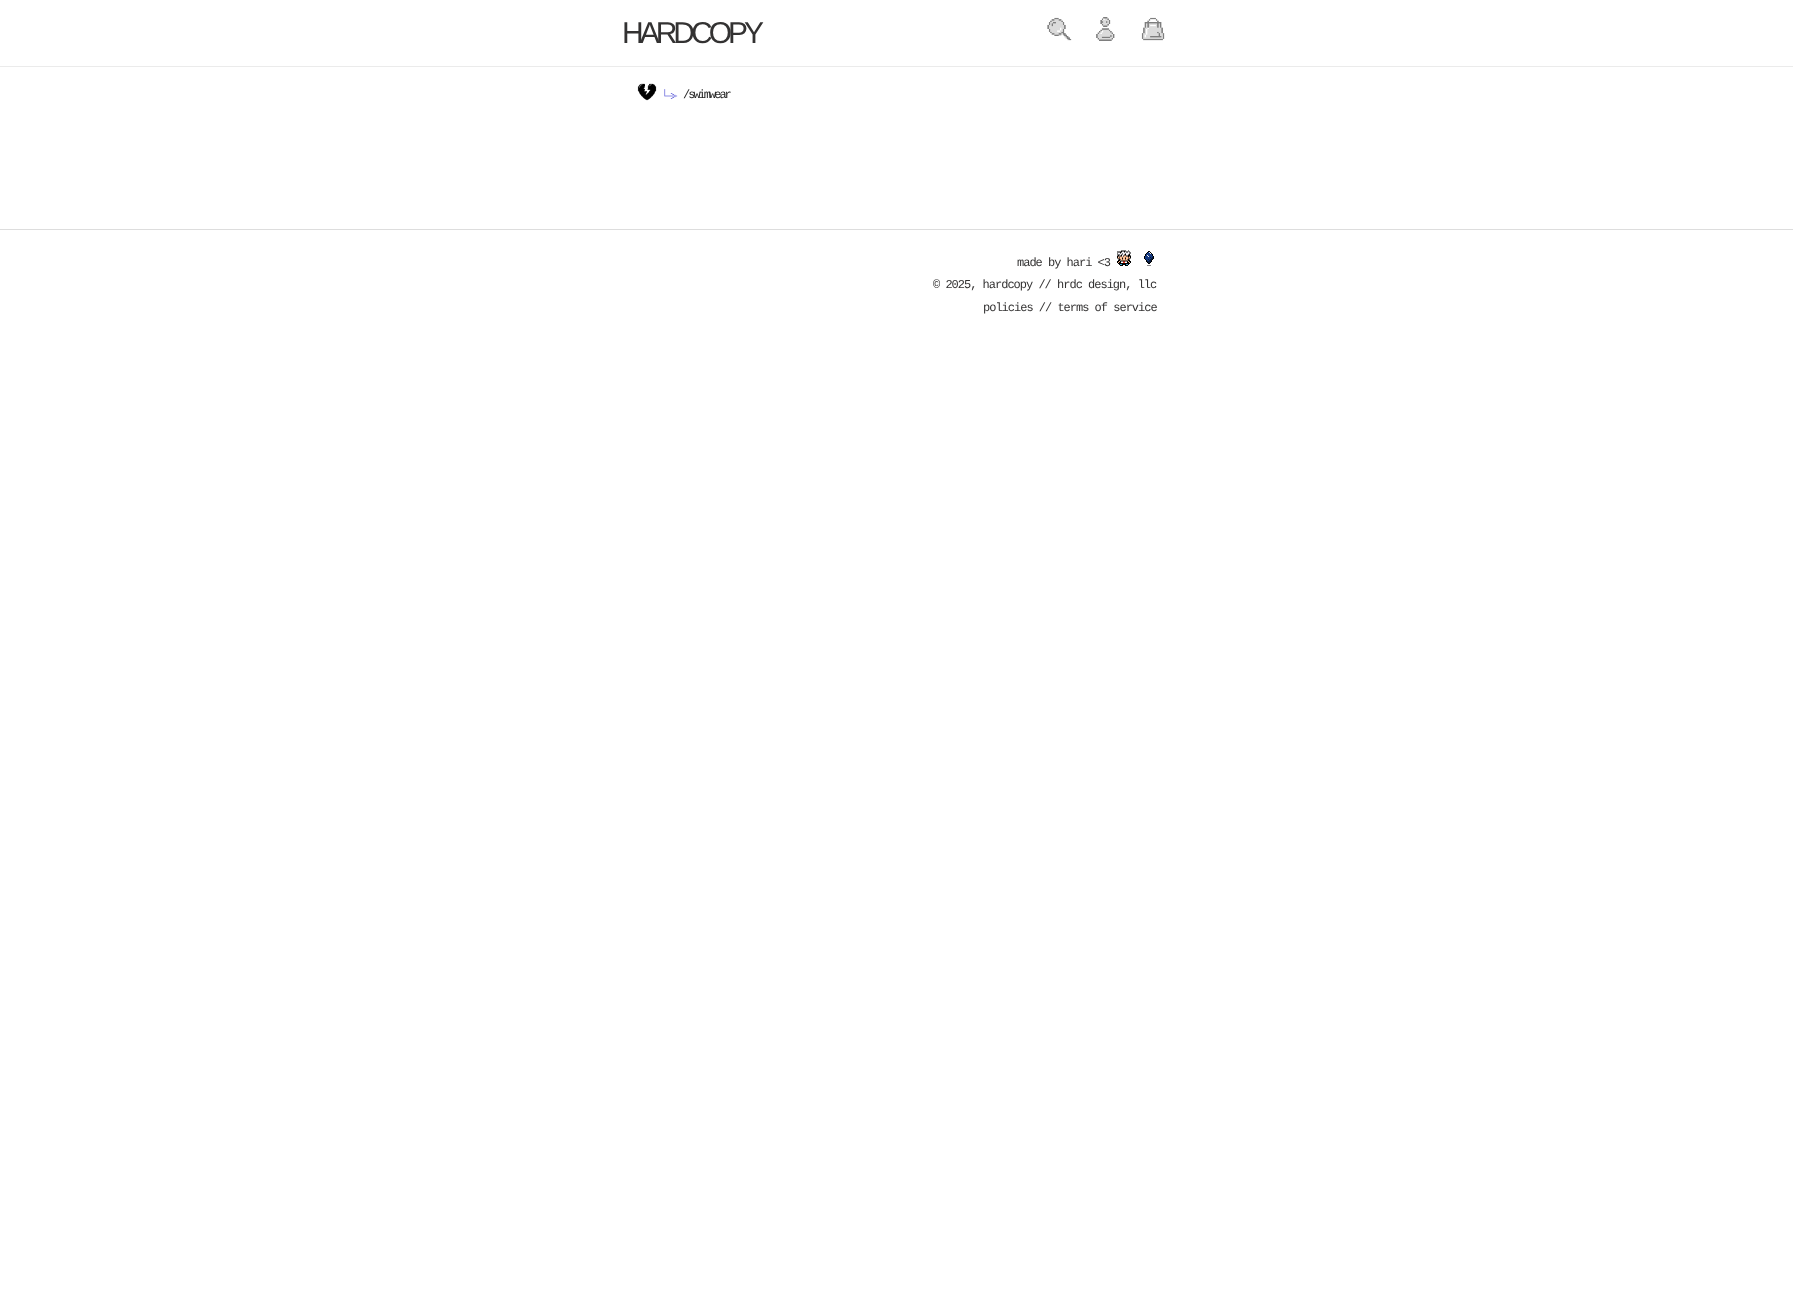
<!DOCTYPE html>
<meta charset="utf-8">
<style>body { margin: 0 } canvas { display: block }</style>
<canvas id="canvas" width="1793" height="1301"></canvas>
<img id="img1" src="images/1.png" hidden>
<img id="img2" src="images/2.png" hidden>
<img id="img3" src="images/3.png" hidden>
<img id="img4" src="images/4.png" hidden>
<img id="img5" src="images/5.png" hidden>
<img id="img6" src="images/6.png" hidden>
<img id="img7" src="images/7.png" hidden>
<script>
window.onload = function () {
    const canvas = document.getElementById('canvas');
    const context = canvas.getContext('2d');
    context.miterLimit = 4;
    context.fontKerning = 'normal';

    context.fillStyle = 'rgb(255, 255, 255)';
    context.fillRect(0, 0, 1793, 1301);
    context.fillStyle = 'rgb(235, 235, 235)';
    context.fillRect(0, 66, 1793, 1);
    context.drawImage(document.getElementById('img1'), 1047, 17, 25, 24);
    context.drawImage(document.getElementById('img2'), 1096, 17, 19, 24);
    context.drawImage(document.getElementById('img3'), 1141, 17, 24, 24);
    context.drawImage(document.getElementById('img4'), 637, 83, 20, 18);
    context.drawImage(document.getElementById('img5'), 664, 89, 14, 10);
    context.fillStyle = 'rgb(221, 221, 221)';
    context.fillRect(0, 229, 1793, 1);
    context.drawImage(document.getElementById('img6'), 1117, 250, 14, 16);
    context.drawImage(document.getElementById('img7'), 1144, 251, 10, 15);
    context.letterSpacing = '-4px';
    context.font = '30px Liberation Sans';
    context.fillStyle = 'rgb(51, 50, 50)';
    context.fillText('HARDCOPY', 622, 43);
    context.letterSpacing = '-2px';
    context.font = '12px Liberation Mono';
    context.fillStyle = 'rgb(34, 34, 34)';
    context.fillText('/swimwear', 683, 98);
    context.letterSpacing = '-1px';
    context.fillStyle = 'rgb(51, 50, 50)';
    context.fillText('made by hari <3', 1017, 266);
    context.fillText('© 2025, hardcopy // hrdc design, llc', 933, 288);
    context.fillText('policies // terms of service', 983, 311);
};
</script>
